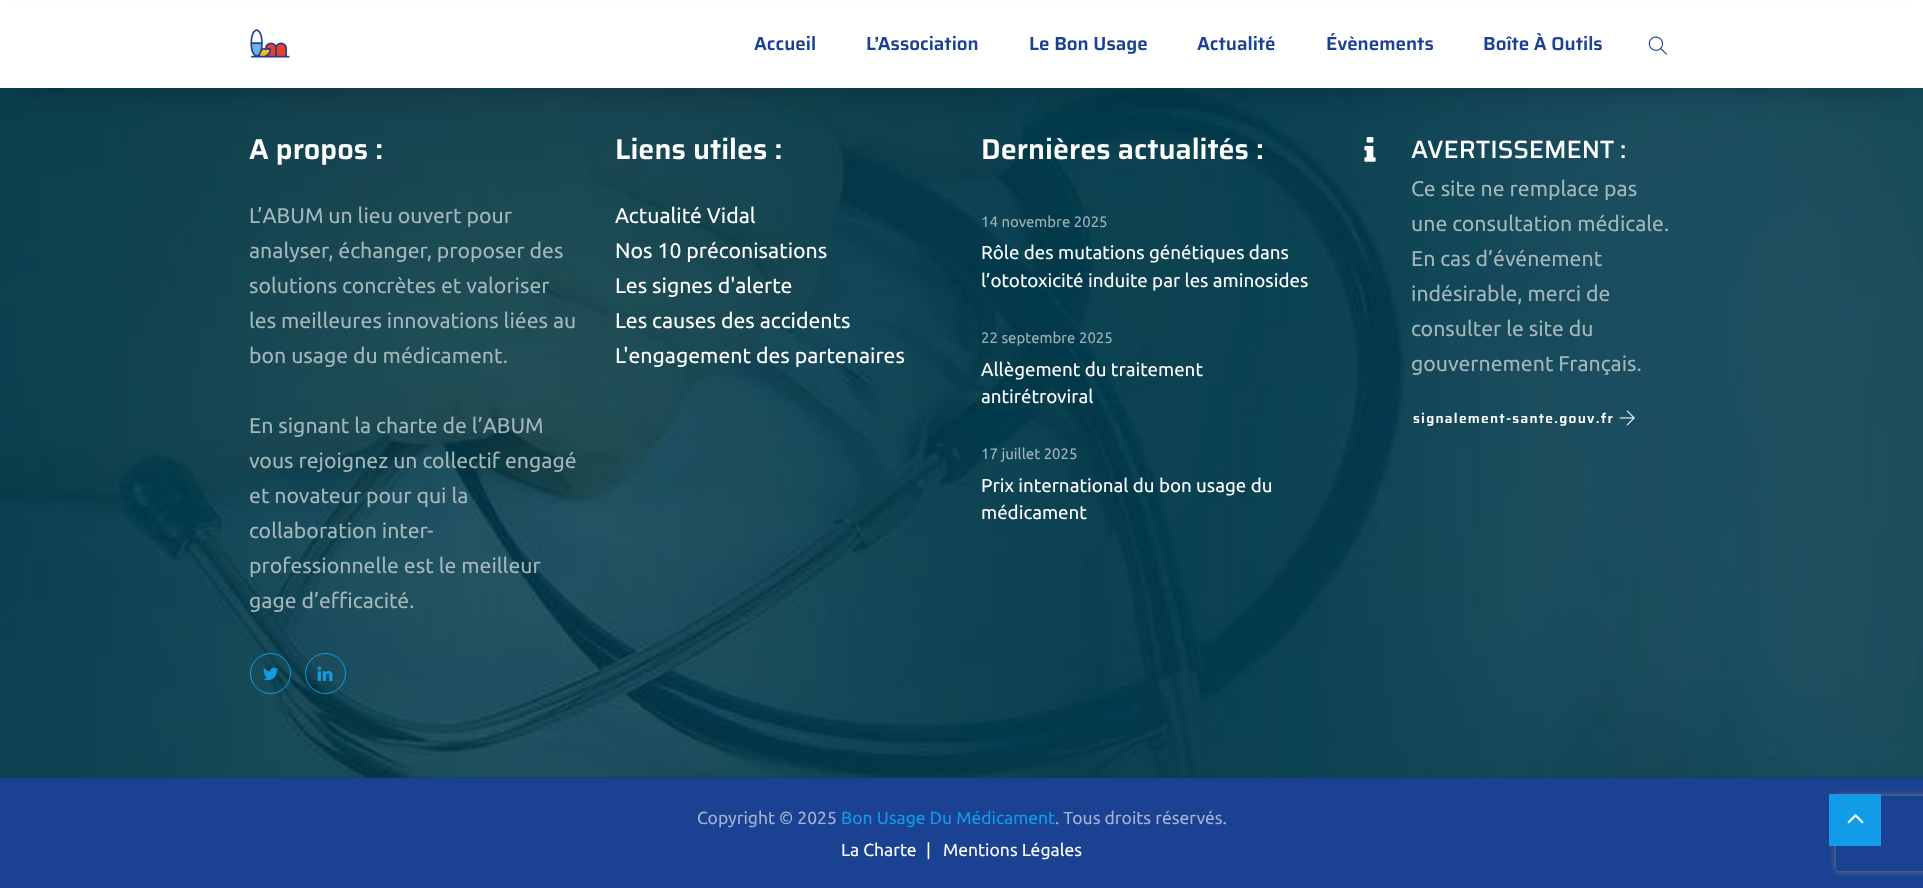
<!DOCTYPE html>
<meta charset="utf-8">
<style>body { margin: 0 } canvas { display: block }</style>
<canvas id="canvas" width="1923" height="888"></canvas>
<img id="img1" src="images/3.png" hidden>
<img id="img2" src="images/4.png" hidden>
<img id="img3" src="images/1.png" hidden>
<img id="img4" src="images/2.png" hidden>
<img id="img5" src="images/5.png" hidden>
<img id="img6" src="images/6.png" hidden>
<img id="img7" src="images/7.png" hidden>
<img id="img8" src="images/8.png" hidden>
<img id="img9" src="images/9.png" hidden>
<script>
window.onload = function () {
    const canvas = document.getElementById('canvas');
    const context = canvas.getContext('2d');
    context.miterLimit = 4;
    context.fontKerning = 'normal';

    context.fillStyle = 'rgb(255, 255, 255)';
    context.fillRect(0, 0, 1923, 888);
    context.drawImage(document.getElementById('img1'), 0, 777, 1923, 1);
    context.drawImage(document.getElementById('img2'), 0, 88, 1923, 690);
    context.fillStyle = 'rgba(0, 0, 0, 0.25)';
    context.filter = 'blur(15.5px)';
    context.beginPath();
    context.rect(15, 31, 1894, 58);
    context.fill();
    context.filter = 'none';
    context.fillStyle = 'rgb(255, 255, 255)';
    context.fillRect(0, 4, 1923, 84);
    context.drawImage(document.getElementById('img3'), 250, 29, 40, 29);
    context.drawImage(document.getElementById('img4'), 1648, 36, 19, 19);
    context.beginPath();
    context.arc(270.5, 673.5, 20, 0, 2 * Math.PI);
    context.strokeStyle = 'rgb(18, 156, 231)';
    context.stroke();
    context.drawImage(document.getElementById('img5'), 263, 667, 16, 14);
    context.beginPath();
    context.arc(325.5, 673.5, 20, 0, 2 * Math.PI);
    context.stroke();
    context.drawImage(document.getElementById('img6'), 317, 666, 16, 15);
    context.drawImage(document.getElementById('img7'), 1364, 137, 12, 25);
    context.drawImage(document.getElementById('img8'), 1619, 410, 16, 16);
    context.fillStyle = 'rgb(27, 65, 146)';
    context.fillRect(0, 778, 1923, 110);
    context.save();
    context.beginPath();
    context.moveTo(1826, 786);
    context.lineTo(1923, 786);
    context.lineTo(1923, 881);
    context.lineTo(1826, 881);
    context.closePath();
    context.moveTo(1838.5, 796);
    context.lineTo(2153.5, 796);
    context.bezierCurveTo(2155, 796, 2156, 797, 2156, 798.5);
    context.lineTo(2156, 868.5);
    context.bezierCurveTo(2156, 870, 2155, 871, 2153.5, 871);
    context.lineTo(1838.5, 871);
    context.bezierCurveTo(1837, 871, 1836, 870, 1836, 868.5);
    context.lineTo(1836, 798.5);
    context.bezierCurveTo(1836, 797, 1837, 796, 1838.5, 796);
    context.closePath();
    context.clip('evenodd');
    context.fillStyle = 'rgb(128, 128, 128)';
    context.filter = 'blur(3px)';
    context.beginPath();
    context.roundRect(1836, 796, 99, 75, 2.5);
    context.fill();
    context.filter = 'none';
    context.restore();
    context.fillStyle = 'rgb(18, 156, 231)';
    context.fillRect(1829, 794, 52, 52);
    context.drawImage(document.getElementById('img9'), 1847, 814, 17, 10);
    context.font = '600 18.75px Saira';
    context.fillStyle = 'rgb(27, 65, 146)';
    context.fillText('Accueil', 754, 50);
    context.fillText('L’Association', 866, 50);
    context.fillText('Le Bon Usage', 1029, 50);
    context.fillText('Actualité', 1197, 50);
    context.fillText('Évènements', 1326, 50);
    context.fillText('Boîte À Outils', 1483, 50);
    context.font = '600 28.75px Saira';
    context.fillStyle = 'rgb(255, 255, 255)';
    context.fillText('A propos :', 249, 159);
    context.font = '21.25px Ubuntu';
    context.fillStyle = 'rgb(163, 182, 186)';
    context.fillText('L’ABUM un lieu ouvert pour', 249, 223);
    context.fillText('analyser, échanger, proposer des', 249, 258);
    context.fillText('solutions concrètes et valoriser', 249, 293);
    context.fillText('les meilleures innovations liées au', 249, 328);
    context.fillText('bon usage du médicament.', 249, 363);
    context.fillText('En signant la charte de l’ABUM', 249, 433);
    context.fillText('vous rejoignez un collectif engagé', 249, 468);
    context.fillText('et novateur pour qui la', 249, 503);
    context.fillText('collaboration inter-', 249, 538);
    context.fillText('professionnelle est le meilleur', 249, 573);
    context.fillText('gage d’efficacité.', 249, 608);
    context.font = '600 28.75px Saira';
    context.fillStyle = 'rgb(255, 255, 255)';
    context.fillText('Liens utiles :', 615, 159);
    context.font = '21.25px Ubuntu';
    context.fillText('Actualité Vidal', 615, 223);
    context.fillText('Nos 10 préconisations', 615, 258);
    context.fillText('Les signes d\'alerte', 615, 293);
    context.fillText('Les causes des accidents', 615, 328);
    context.fillText('L\'engagement des partenaires', 615, 363);
    context.font = '600 28.75px Saira';
    context.fillText('Dernières actualités :', 981, 159);
    context.font = '15px Ubuntu';
    context.fillStyle = 'rgb(156, 178, 184)';
    context.fillText('14 novembre 2025', 981, 227);
    context.font = '18.75px Ubuntu';
    context.fillStyle = 'rgb(255, 255, 255)';
    context.fillText('Rôle des mutations génétiques dans', 981, 259);
    context.fillText('l’ototoxicité induite par les aminosides', 981, 287);
    context.font = '15px Ubuntu';
    context.fillStyle = 'rgb(156, 178, 184)';
    context.fillText('22 septembre 2025', 981, 343);
    context.font = '18.75px Ubuntu';
    context.fillStyle = 'rgb(255, 255, 255)';
    context.fillText('Allègement du traitement', 981, 376);
    context.fillText('antirétroviral', 981, 403);
    context.font = '15px Ubuntu';
    context.fillStyle = 'rgb(163, 182, 186)';
    context.fillText('17 juillet 2025', 981, 459);
    context.font = '18.75px Ubuntu';
    context.fillStyle = 'rgb(255, 255, 255)';
    context.fillText('Prix international du bon usage du', 981, 492);
    context.fillText('médicament', 981, 519);
    context.font = '500 25px Saira';
    context.fillText('AVERTISSEMENT :', 1411, 158);
    context.font = '21.25px Ubuntu';
    context.fillStyle = 'rgb(163, 182, 186)';
    context.fillText('Ce site ne remplace pas', 1411, 196);
    context.fillText('une consultation médicale.', 1411, 231);
    context.fillText('En cas d’événement', 1411, 266);
    context.fillText('indésirable, merci de', 1411, 301);
    context.fillText('consulter le site du', 1411, 336);
    context.fillText('gouvernement Français.', 1411, 371);
    context.letterSpacing = '1.25px';
    context.font = '600 13.75px Saira';
    context.fillStyle = 'rgb(255, 255, 255)';
    context.fillText('signalement-sante.gouv.fr', 1413, 423);
    context.letterSpacing = '0px';
    context.font = '17.5px Ubuntu';
    context.fillStyle = 'rgb(164, 179, 211)';
    context.fillText('Copyright © 2025', 697, 824);
    context.fillStyle = 'rgb(18, 156, 231)';
    context.fillText('Bon Usage Du Médicament', 841, 824);
    context.fillStyle = 'rgb(164, 179, 211)';
    context.fillText('. Tous droits réservés.', 1055, 824);
    context.fillStyle = 'rgb(255, 255, 255)';
    context.fillText('La Charte', 841, 856);
    context.fillText('|', 926, 856);
    context.fillText('Mentions Légales', 943, 856);
};
</script>
